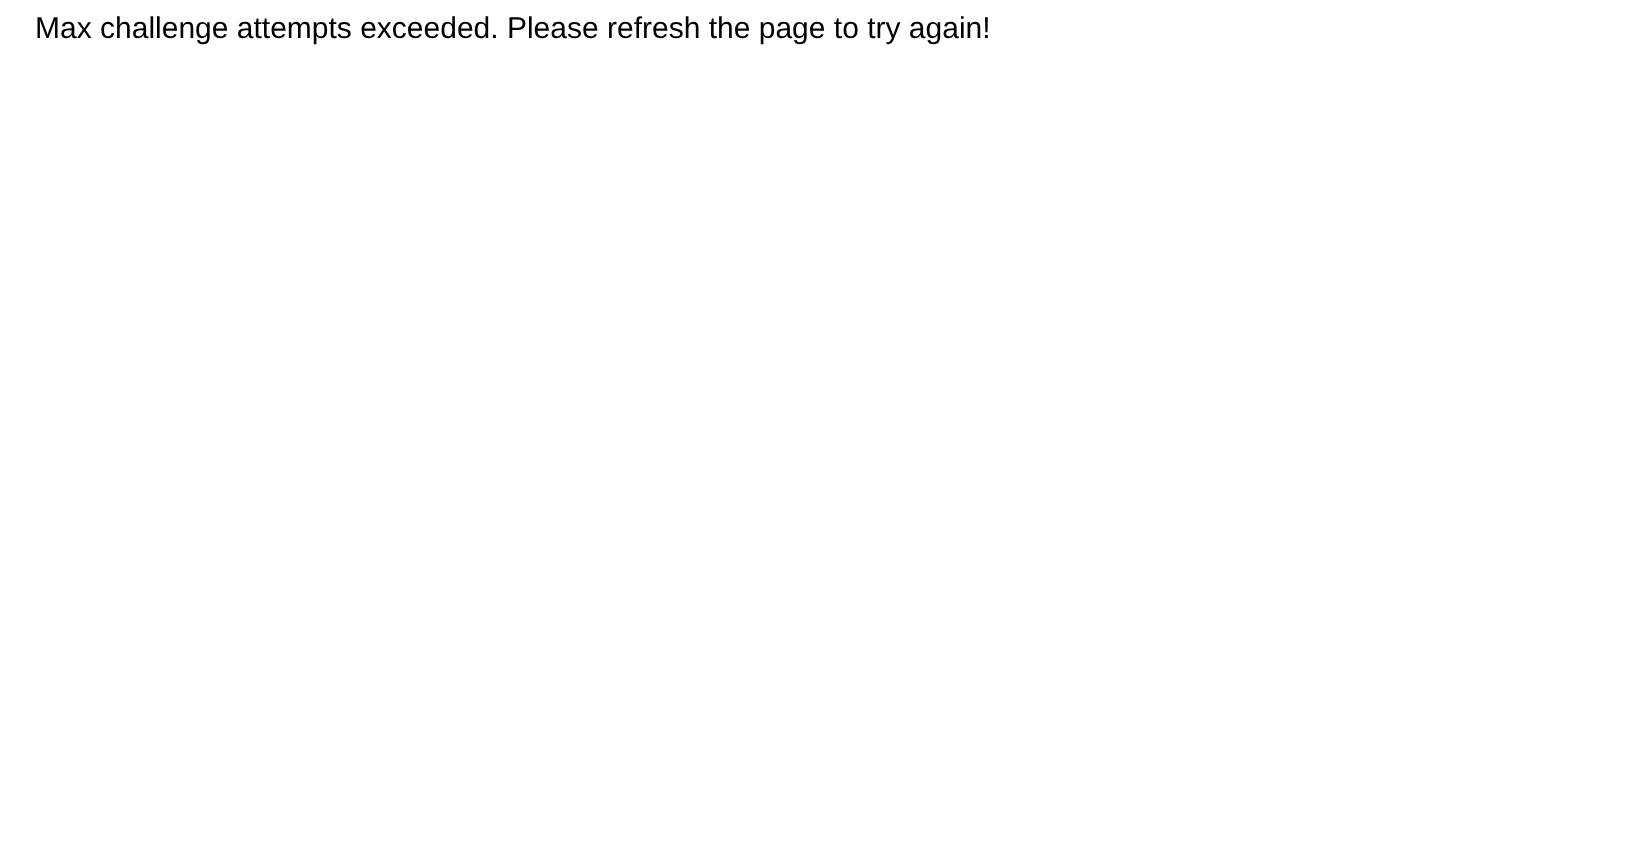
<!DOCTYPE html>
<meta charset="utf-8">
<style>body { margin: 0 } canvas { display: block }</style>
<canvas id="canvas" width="1633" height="852"></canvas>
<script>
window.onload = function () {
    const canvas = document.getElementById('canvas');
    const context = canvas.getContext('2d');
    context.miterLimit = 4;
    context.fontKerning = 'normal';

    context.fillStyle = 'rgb(255, 255, 255)';
    context.fillRect(0, 0, 1633, 852);
    context.font = '30px Liberation Sans';
    context.fillStyle = 'rgb(0, 0, 0)';
    context.fillText('Max challenge attempts exceeded. Please refresh the page to try again!', 35, 38);
};
</script>
